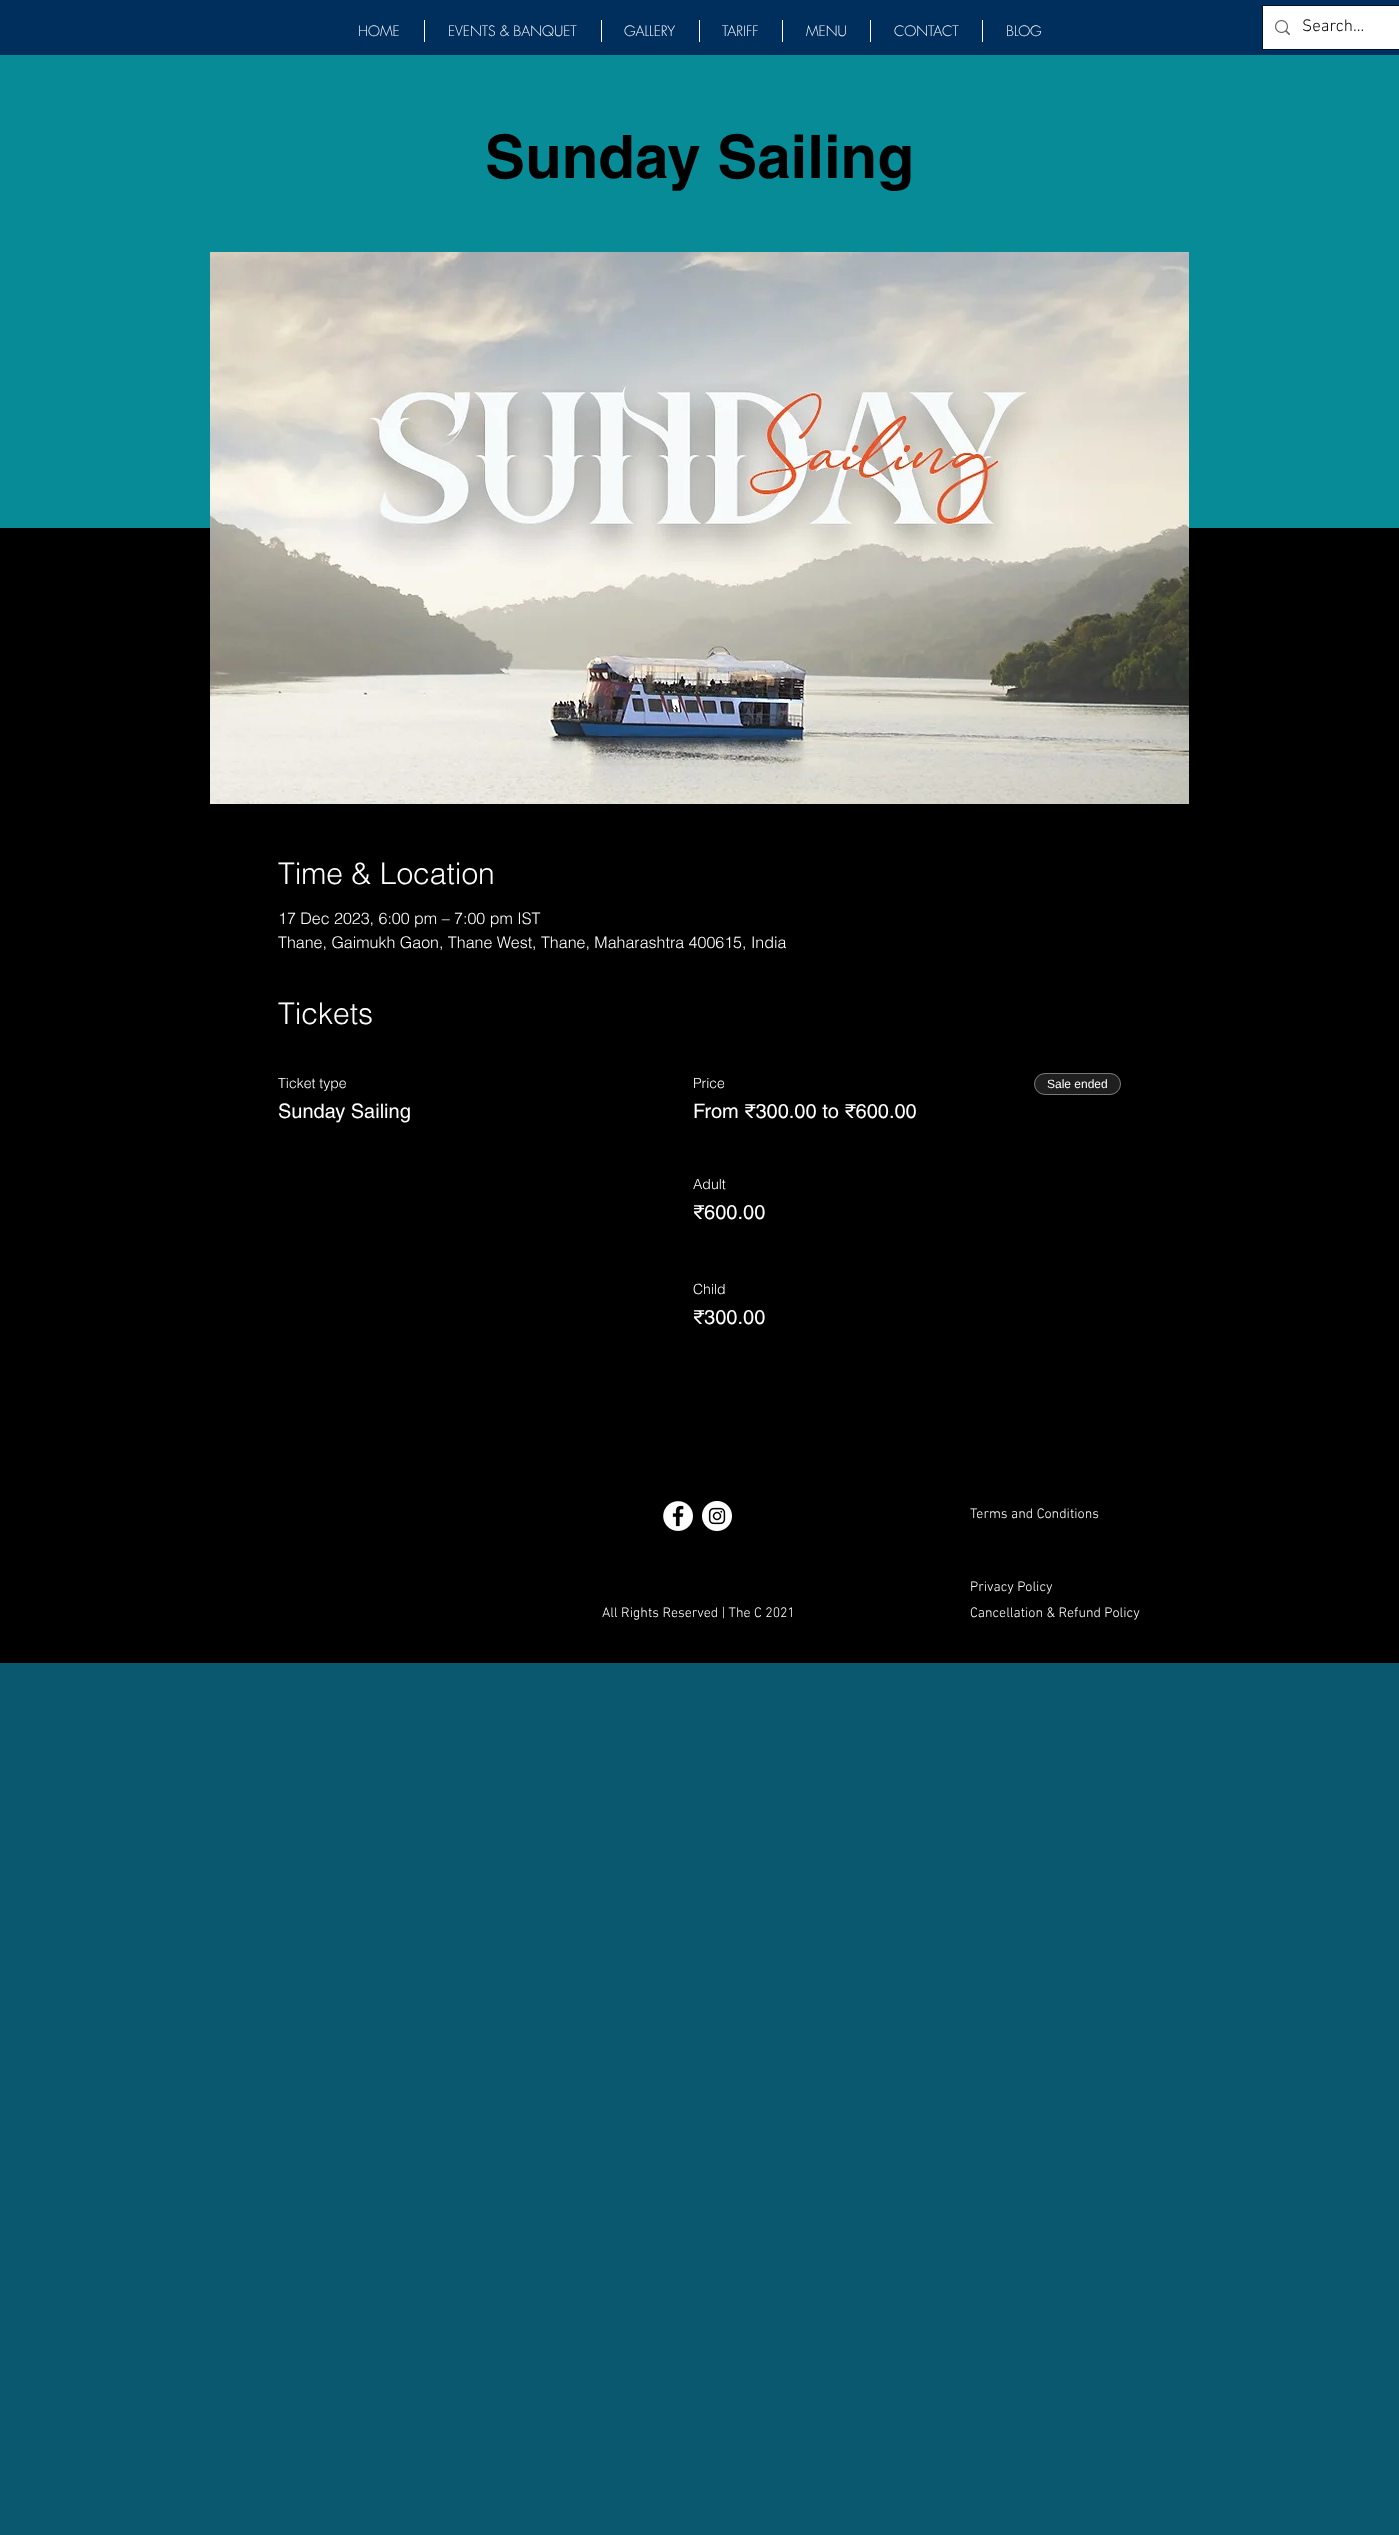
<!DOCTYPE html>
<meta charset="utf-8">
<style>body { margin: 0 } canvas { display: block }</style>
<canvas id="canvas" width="1399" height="2535"></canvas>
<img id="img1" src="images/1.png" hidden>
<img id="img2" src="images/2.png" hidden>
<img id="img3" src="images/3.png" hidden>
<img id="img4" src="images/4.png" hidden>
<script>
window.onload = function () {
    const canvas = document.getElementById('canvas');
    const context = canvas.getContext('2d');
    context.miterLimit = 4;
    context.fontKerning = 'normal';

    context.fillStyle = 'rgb(9, 88, 112)';
    context.fillRect(0, 0, 1399, 2535);
    context.fillStyle = 'rgb(0, 46, 93)';
    context.fillRect(0, 0, 1399, 55);
    context.fillStyle = 'rgb(255, 255, 255)';
    context.fillRect(424, 20, 1, 22);
    context.fillRect(601, 20, 1, 22);
    context.fillRect(699, 20, 1, 22);
    context.fillRect(782, 20, 1, 22);
    context.fillRect(870, 20, 1, 22);
    context.fillRect(982, 20, 1, 22);
    context.strokeStyle = 'rgb(0, 18, 37)';
    context.strokeRect(1262.5, 5.5, 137, 44);
    context.fillRect(1263, 6, 136, 43);
    context.drawImage(document.getElementById('img1'), 1275, 20, 15, 15);
    context.fillStyle = 'rgb(7, 139, 150)';
    context.fillRect(0, 55, 1399, 473);
    context.fillStyle = 'rgb(0, 0, 0)';
    context.fillRect(0, 528, 1399, 1135);
    context.drawImage(document.getElementById('img2'), 210, 252, 979, 552);
    context.fillStyle = 'rgb(31, 31, 31)';
    context.beginPath();
    context.roundRect(1034, 1073, 87, 22, 11);
    context.fill();
    context.beginPath();
    context.roundRect(1034.5, 1073.5, 86, 21, 10.5);
    context.strokeStyle = 'rgba(255, 255, 255, 0.4)';
    context.stroke();
    context.drawImage(document.getElementById('img3'), 663, 1501, 30, 30);
    context.drawImage(document.getElementById('img4'), 702, 1501, 30, 30);
    context.font = '300 14px futura';
    context.fillStyle = 'rgb(255, 255, 255)';
    context.fillText('HOME', 358, 36);
    context.fillText('EVENTS & BANQUET', 448, 36);
    context.fillText('GALLERY', 624, 36);
    context.fillText('TARIFF', 722, 36);
    context.fillText('MENU', 806, 36);
    context.fillText('CONTACT', 894, 36);
    context.fillText('BLOG', 1006, 36);
    context.font = '300 17px "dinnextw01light"';
    context.fillStyle = 'rgb(0, 0, 0)';
    context.fillText('Search...', 1302, 31);
    context.font = 'bold 60px helvetica';
    context.fillText('Sunday Sailing', 485, 178);
    context.font = '300 30px helvetica';
    context.fillStyle = 'rgb(255, 255, 255)';
    context.fillText('Time & Location', 278, 884);
    context.font = '300 16px helvetica';
    context.fillText('17 Dec 2023, 6:00 pm – 7:00 pm IST', 278, 924);
    context.fillText('Thane, Gaimukh Gaon, Thane West, Thane, Maharashtra 400615, India', 278, 948);
    context.font = '300 30px helvetica';
    context.fillText('Tickets', 278, 1024);
    context.font = '300 14px helvetica';
    context.fillText('Ticket type', 278, 1088);
    context.font = '20px helvetica';
    context.fillText('Sunday Sailing', 278, 1118);
    context.font = '300 14px helvetica';
    context.fillText('Price', 693, 1088);
    context.font = '20px helvetica';
    context.fillText('From ₹300.00 to ₹600.00', 693, 1118);
    context.font = '12px Liberation Sans';
    context.fillText('Sale ended', 1047, 1088);
    context.font = '300 14px helvetica';
    context.fillText('Adult', 693, 1189);
    context.font = '20px helvetica';
    context.fillText('₹600.00', 693, 1219);
    context.font = '300 14px helvetica';
    context.fillText('Child', 693, 1294);
    context.font = '20px helvetica';
    context.fillText('₹300.00', 693, 1324);
    context.font = '300 14px "dinnextw01light"';
    context.fillText('Terms and Conditions', 970, 1518);
    context.fillText('Privacy Policy', 970, 1591);
    context.fillText('All Rights Reserved | The C 2021', 602, 1617);
    context.fillText('Cancellation & Refund Policy', 970, 1617);
};
</script>
